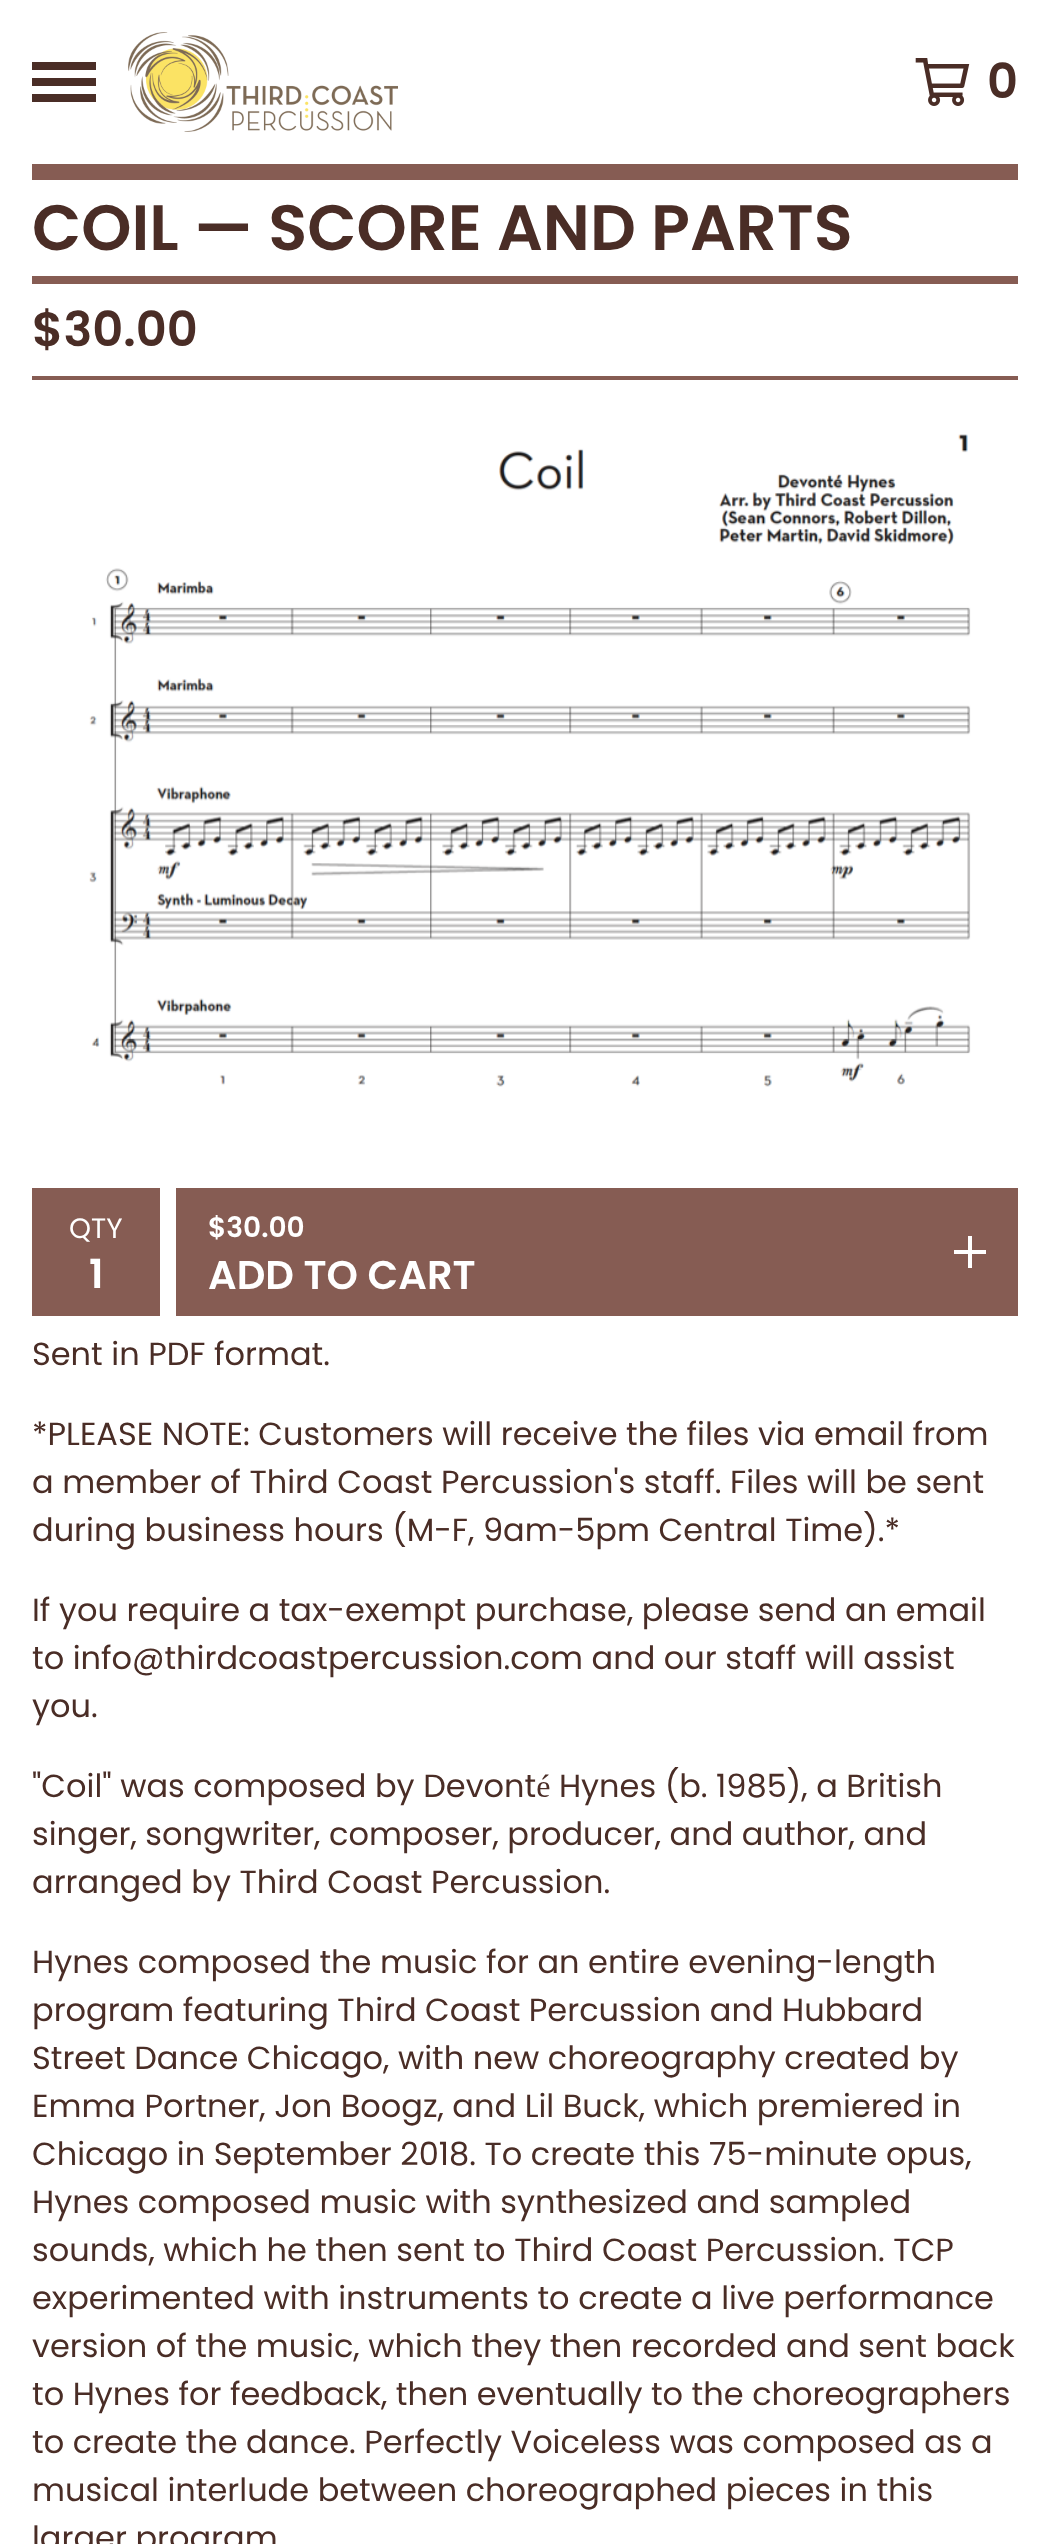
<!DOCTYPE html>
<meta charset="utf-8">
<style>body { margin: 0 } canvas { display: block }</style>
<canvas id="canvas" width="1050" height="2544"></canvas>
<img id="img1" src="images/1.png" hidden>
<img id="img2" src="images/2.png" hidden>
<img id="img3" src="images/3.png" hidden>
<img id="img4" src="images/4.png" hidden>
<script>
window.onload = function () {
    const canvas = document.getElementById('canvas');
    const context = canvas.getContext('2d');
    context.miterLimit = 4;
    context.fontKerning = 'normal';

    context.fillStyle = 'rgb(255, 255, 255)';
    context.fillRect(0, 0, 1050, 2544);
    context.fillStyle = 'rgb(134, 92, 83)';
    context.fillRect(32, 164, 986, 16);
    context.fillStyle = 'rgb(74, 45, 38)';
    context.fillRect(32, 78, 64, 8);
    context.fillRect(32, 62, 64, 8);
    context.fillRect(32, 94, 64, 8);
    context.drawImage(document.getElementById('img1'), 128, 32, 270, 100);
    context.drawImage(document.getElementById('img2'), 915, 58, 55, 48);
    context.fillStyle = 'rgb(134, 92, 83)';
    context.fillRect(32, 276, 986, 8);
    context.fillRect(32, 376, 986, 4);
    context.drawImage(document.getElementById('img3'), 89, 434, 882, 653);
    context.fillRect(32, 1188, 128, 128);
    context.fillRect(176, 1188, 842, 128);
    context.drawImage(document.getElementById('img4'), 954, 1236, 32, 32);
    context.font = '600 48px Poppins';
    context.fillStyle = 'rgb(74, 45, 38)';
    context.fillText('0', 987, 98);
    context.font = '600 64px Poppins';
    context.fillText('COIL — SCORE AND PARTS', 32, 250);
    context.font = '600 48px Poppins';
    context.fillText('$30.00', 32, 346);
    context.font = '28px Poppins';
    context.fillStyle = 'rgb(255, 255, 255)';
    context.fillText('QTY', 69, 1238);
    context.font = '600 40px Poppins';
    context.fillText('1', 89, 1288);
    context.font = '600 28px Poppins';
    context.fillText('$30.00', 208, 1237);
    context.font = '600 40px Poppins';
    context.fillText('ADD TO CART', 208, 1289);
    context.font = '32px Poppins';
    context.fillStyle = 'rgb(74, 45, 38)';
    context.fillText('Sent in PDF format.', 32, 1365);
    context.fillText('*PLEASE NOTE: Customers will receive the files via email from', 32, 1445);
    context.fillText('a member of Third Coast Percussion\'s staff. Files will be sent', 32, 1493);
    context.fillText('during business hours (M-F, 9am-5pm Central Time).*', 32, 1541);
    context.fillText('If you require a tax-exempt purchase, please send an email', 32, 1621);
    context.fillText('to info@thirdcoastpercussion.com and our staff will assist', 32, 1669);
    context.fillText('you.', 32, 1717);
    context.fillText('"Coil" was composed by Devonté Hynes (b. 1985), a British', 32, 1797);
    context.fillText('singer, songwriter, composer, producer, and author, and', 32, 1845);
    context.fillText('arranged by Third Coast Percussion.', 32, 1893);
    context.fillText('Hynes composed the music for an entire evening-length', 32, 1973);
    context.fillText('program featuring Third Coast Percussion and Hubbard', 32, 2021);
    context.fillText('Street Dance Chicago, with new choreography created by', 32, 2069);
    context.fillText('Emma Portner, Jon Boogz, and Lil Buck, which premiered in', 32, 2117);
    context.fillText('Chicago in September 2018. To create this 75-minute opus,', 32, 2165);
    context.fillText('Hynes composed music with synthesized and sampled', 32, 2213);
    context.fillText('sounds, which he then sent to Third Coast Percussion. TCP', 32, 2261);
    context.fillText('experimented with instruments to create a live performance', 32, 2309);
    context.fillText('version of the music, which they then recorded and sent back', 32, 2357);
    context.fillText('to Hynes for feedback, then eventually to the choreographers', 32, 2405);
    context.fillText('to create the dance. Perfectly Voiceless was composed as a', 32, 2453);
    context.fillText('musical interlude between choreographed pieces in this', 32, 2501);
    context.fillText('larger program', 32, 2549);
};
</script>
